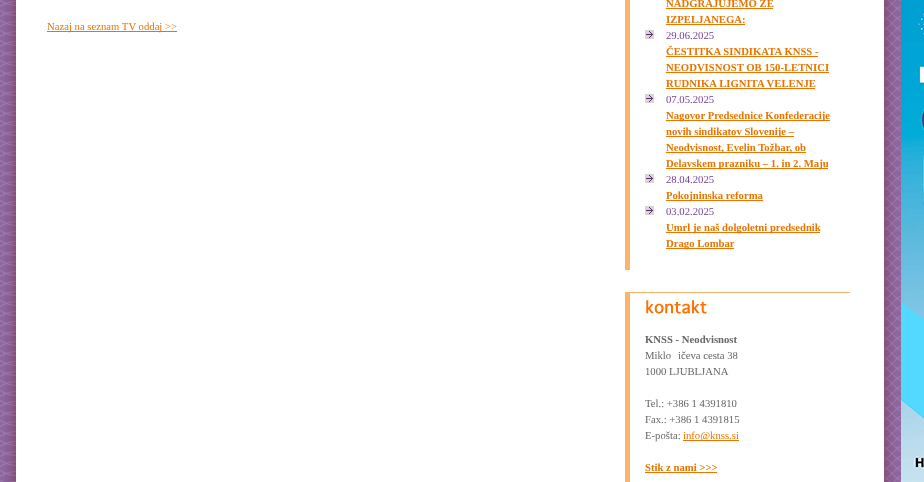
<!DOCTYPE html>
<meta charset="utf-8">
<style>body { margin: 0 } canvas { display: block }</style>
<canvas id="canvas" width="924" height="482"></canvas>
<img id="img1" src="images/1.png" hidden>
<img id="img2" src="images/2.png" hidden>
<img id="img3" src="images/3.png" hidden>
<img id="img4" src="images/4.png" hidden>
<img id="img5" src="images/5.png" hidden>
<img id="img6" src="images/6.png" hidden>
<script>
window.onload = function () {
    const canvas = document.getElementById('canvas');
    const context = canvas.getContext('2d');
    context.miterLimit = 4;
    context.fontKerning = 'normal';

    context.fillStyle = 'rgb(255, 255, 255)';
    context.fillRect(0, 0, 924, 482);
    context.drawImage(document.getElementById('img1'), 0, 0, 901, 482);
    context.drawImage(document.getElementById('img2'), 5, 0, 11, 482);
    context.fillRect(16, 0, 868, 482);
    context.fillStyle = 'rgb(233, 117, 0)';
    context.fillRect(47, 31, 130, 1);
    context.fillStyle = 'rgb(254, 180, 104)';
    context.fillRect(625, 0, 5, 270);
    context.fillStyle = 'rgb(233, 117, 0)';
    context.fillRect(666, 8, 107, 1);
    context.fillRect(666, 24, 79, 1);
    context.drawImage(document.getElementById('img3'), 645, 30, 9, 9);
    context.fillRect(666, 56, 152, 1);
    context.fillRect(666, 72, 163, 1);
    context.fillRect(666, 88, 149, 1);
    context.drawImage(document.getElementById('img3'), 645, 94, 9, 9);
    context.fillRect(666, 120, 164, 1);
    context.fillRect(666, 136, 128, 1);
    context.fillRect(666, 152, 140, 1);
    context.fillRect(666, 168, 162, 1);
    context.drawImage(document.getElementById('img3'), 645, 174, 9, 9);
    context.fillRect(666, 200, 97, 1);
    context.drawImage(document.getElementById('img3'), 645, 206, 9, 9);
    context.fillRect(666, 232, 154, 1);
    context.fillRect(666, 248, 68, 1);
    context.fillStyle = 'rgb(254, 180, 104)';
    context.fillRect(625, 292, 225, 1);
    context.fillRect(625, 293, 5, 189);
    context.drawImage(document.getElementById('img4'), 646, 300, 61, 14);
    context.fillStyle = 'rgb(233, 117, 0)';
    context.fillRect(683, 440, 56, 1);
    context.fillRect(645, 472, 72, 1);
    context.drawImage(document.getElementById('img5'), 884, 0, 11, 482);
    context.drawImage(document.getElementById('img6'), 901, 0, 23, 482);
    context.font = '10.7px Liberation Serif';
    context.fillText('Nazaj na seznam TV oddaj >>', 47, 30);
    context.font = 'bold 10.7px Liberation Serif';
    context.fillText('NADGRAJUJEMO ŽE', 666, 7);
    context.fillText('IZPELJANEGA:', 666, 23);
    context.font = '10.7px Liberation Serif';
    context.fillStyle = 'rgb(120, 65, 156)';
    context.fillText('29.06.2025', 666, 39);
    context.font = 'bold 10.7px Liberation Serif';
    context.fillStyle = 'rgb(233, 117, 0)';
    context.fillText('ČESTITKA SINDIKATA KNSS -', 666, 55);
    context.fillText('NEODVISNOST OB 150-LETNICI', 666, 71);
    context.fillText('RUDNIKA LIGNITA VELENJE', 666, 87);
    context.font = '10.7px Liberation Serif';
    context.fillStyle = 'rgb(120, 65, 156)';
    context.fillText('07.05.2025', 666, 103);
    context.font = 'bold 10.7px Liberation Serif';
    context.fillStyle = 'rgb(233, 117, 0)';
    context.fillText('Nagovor Predsednice Konfederacije', 666, 119);
    context.fillText('novih sindikatov Slovenije –', 666, 135);
    context.fillText('Neodvisnost, Evelin Tožbar, ob', 666, 151);
    context.fillText('Delavskem prazniku – 1. in 2. Maju', 666, 167);
    context.font = '10.7px Liberation Serif';
    context.fillStyle = 'rgb(120, 65, 156)';
    context.fillText('28.04.2025', 666, 183);
    context.font = 'bold 10.7px Liberation Serif';
    context.fillStyle = 'rgb(233, 117, 0)';
    context.fillText('Pokojninska reforma', 666, 199);
    context.font = '10.7px Liberation Serif';
    context.fillStyle = 'rgb(120, 65, 156)';
    context.fillText('03.02.2025', 666, 215);
    context.font = 'bold 10.7px Liberation Serif';
    context.fillStyle = 'rgb(233, 117, 0)';
    context.fillText('Umrl je naš dolgoletni predsednik', 666, 231);
    context.fillText('Drago Lombar', 666, 247);
    context.fillStyle = 'rgb(102, 102, 102)';
    context.fillText('KNSS - Neodvisnost', 645, 343);
    context.font = '10.7px Liberation Serif';
    context.fillText('Miklo', 645, 359);
    context.fillText('ičeva cesta 38', 678, 359);
    context.fillText('1000 LJUBLJANA', 645, 375);
    context.fillText('Tel.: +386 1 4391810', 645, 407);
    context.fillText('Fax.: +386 1 4391815', 645, 423);
    context.fillText('E-pošta:', 645, 439);
    context.fillStyle = 'rgb(233, 117, 0)';
    context.fillText('info@knss.si', 683, 439);
    context.font = 'bold 10.7px Liberation Serif';
    context.fillText('Stik z nami >>>', 645, 471);
};
</script>
